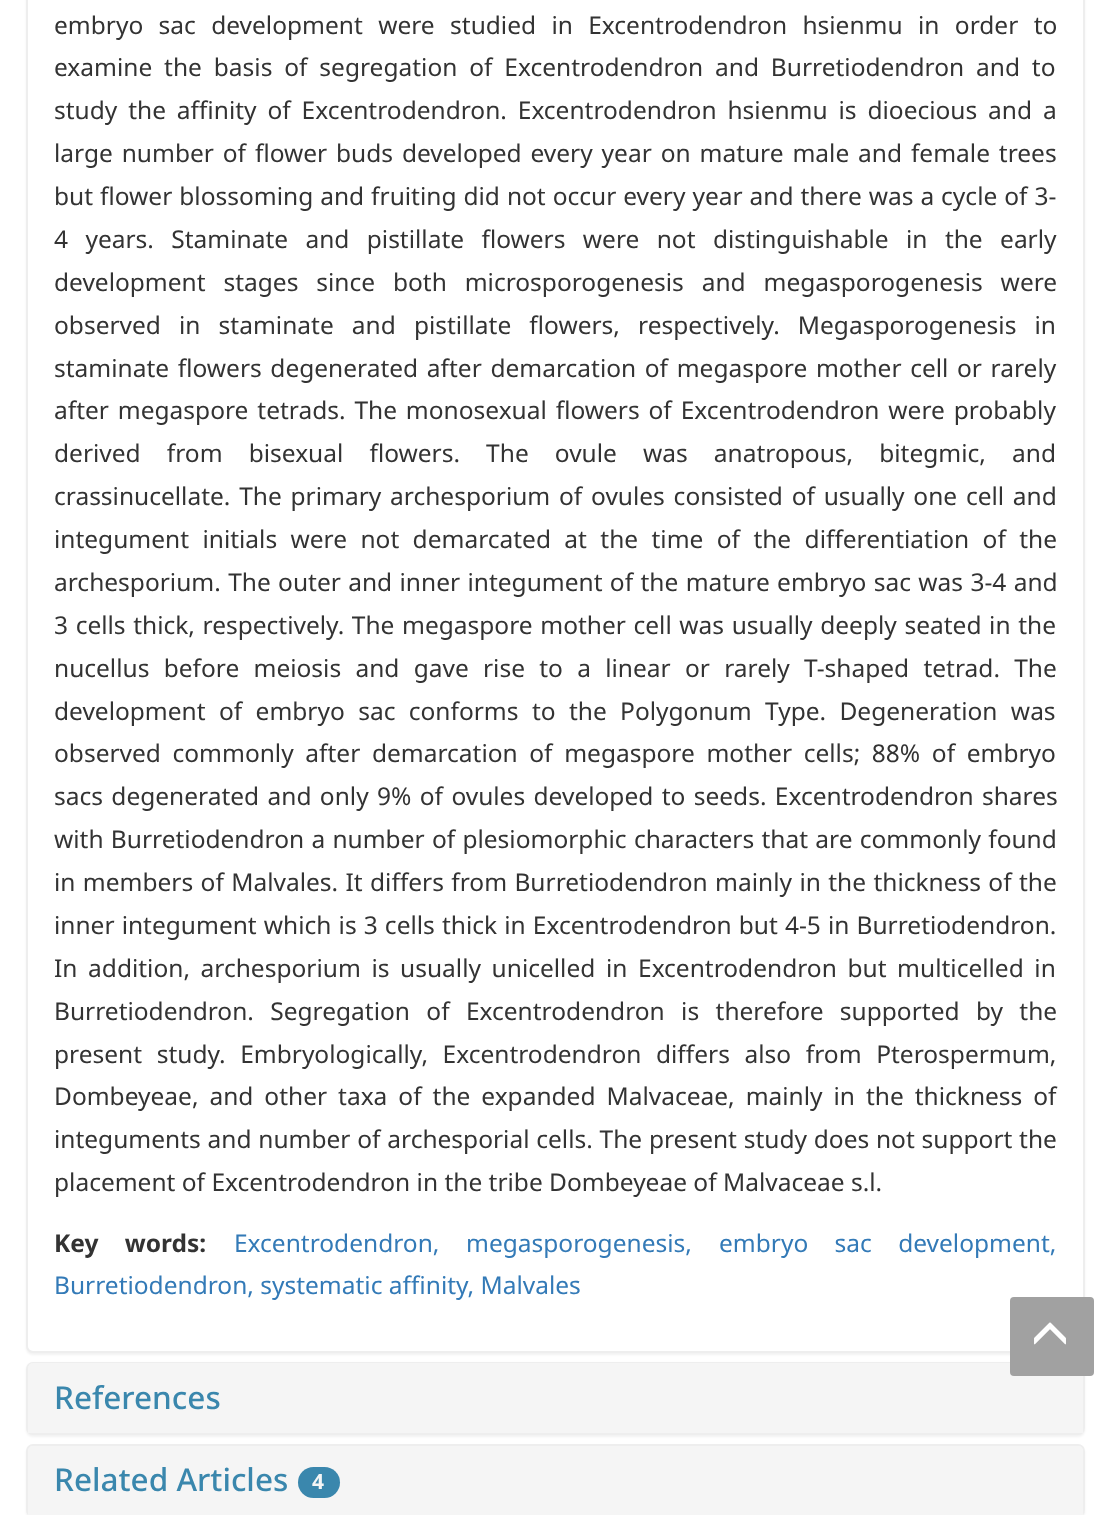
<!DOCTYPE html>
<meta charset="utf-8">
<style>body { margin: 0 } canvas { display: block }</style>
<canvas id="canvas" width="1110" height="1515"></canvas>
<img id="img1" src="images/1.png" hidden>
<script>
window.onload = function () {
    const canvas = document.getElementById('canvas');
    const context = canvas.getContext('2d');
    context.miterLimit = 4;
    context.fontKerning = 'normal';

    context.fillStyle = 'rgb(255, 255, 255)';
    context.fillRect(0, 0, 1110, 1515);
    context.fillStyle = 'rgba(0, 0, 0, 0.05)';
    context.filter = 'blur(1px)';
    context.beginPath();
    context.roundRect(26, -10, 1059, 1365, 7);
    context.fill();
    context.filter = 'none';
    context.fillStyle = 'rgb(255, 255, 255)';
    context.beginPath();
    context.roundRect(27, -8, 1057, 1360, 6);
    context.fill();
    context.strokeStyle = 'rgb(238, 238, 238)';
    context.lineWidth = 2;
    context.stroke();
    context.fillStyle = 'rgba(0, 0, 0, 0.05)';
    context.filter = 'blur(1px)';
    context.beginPath();
    context.roundRect(26, 1363, 1059, 74, 7);
    context.fill();
    context.filter = 'none';
    context.beginPath();
    context.roundRect(27, 1363, 1057, 71, 6);
    context.stroke();
    context.fillStyle = 'rgb(245, 245, 245)';
    context.beginPath();
    context.roundRect(28, 1363, 1055, 70, [5, 5, 0, 0]);
    context.fill();
    context.fillStyle = 'rgba(0, 0, 0, 0.05)';
    context.filter = 'blur(1px)';
    context.beginPath();
    context.roundRect(26, 1446, 1059, 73, 7);
    context.fill();
    context.filter = 'none';
    context.beginPath();
    context.roundRect(27, 1445, 1057, 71, 6);
    context.stroke();
    context.fillStyle = 'rgb(245, 245, 245)';
    context.beginPath();
    context.moveTo(33, 1446);
    context.lineTo(1078, 1446);
    context.bezierCurveTo(1081, 1446, 1083, 1448, 1083, 1451);
    context.lineTo(1083, 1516);
    context.lineTo(28, 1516);
    context.lineTo(28, 1451);
    context.bezierCurveTo(28, 1448, 30, 1446, 33, 1446);
    context.closePath();
    context.fill();
    context.fillStyle = 'rgb(58, 135, 173)';
    context.beginPath();
    context.roundRect(298, 1467, 42, 31, 15.5);
    context.fill();
    context.fillStyle = 'rgb(161, 161, 161)';
    context.beginPath();
    context.roundRect(1010, 1297, 84, 79, 4);
    context.fill();
    context.drawImage(document.getElementById('img1'), 1034, 1322, 32, 23);
    context.wordSpacing = '9px';
    context.font = '24.5px Noto Sans';
    context.fillStyle = 'rgb(51, 51, 51)';
    context.fillText('embryo sac development were studied in Excentrodendron hsienmu in order to', 54, 34);
    context.wordSpacing = '5.5px';
    context.fillText('examine the basis of segregation of Excentrodendron and Burretiodendron and to', 54, 76);
    context.wordSpacing = '4.5px';
    context.fillText('study the affinity of Excentrodendron. Excentrodendron hsienmu is dioecious and a', 54, 119);
    context.wordSpacing = '2.5px';
    context.fillText('large number of flower buds developed every year on mature male and female trees', 54, 162);
    context.wordSpacing = '0.6px';
    context.fillText('but flower blossoming and fruiting did not occur every year and there was a cycle of 3-', 54, 205);
    context.wordSpacing = '11px';
    context.fillText('4 years. Staminate and pistillate flowers were not distinguishable in the early', 54, 248);
    context.wordSpacing = '11.5px';
    context.fillText('development stages since both microsporogenesis and megasporogenesis were', 54, 291);
    context.wordSpacing = '11.75px';
    context.fillText('observed in staminate and pistillate flowers, respectively. Megasporogenesis in', 54, 334);
    context.wordSpacing = '2.25px';
    context.fillText('staminate flowers degenerated after demarcation of megaspore mother cell or rarely', 54, 377);
    context.wordSpacing = '2.5px';
    context.fillText('after megaspore tetrads. The monosexual flowers of Excentrodendron were probably', 54, 419);
    context.wordSpacing = '19.75px';
    context.fillText('derived from bisexual flowers. The ovule was anatropous, bitegmic, and', 54, 462);
    context.wordSpacing = '2.4px';
    context.fillText('crassinucellate. The primary archesporium of ovules consisted of usually one cell and', 54, 505);
    context.wordSpacing = '7px';
    context.fillText('integument initials were not demarcated at the time of the differentiation of the', 54, 548);
    context.wordSpacing = '1px';
    context.fillText('archesporium. The outer and inner integument of the mature embryo sac was 3-4 and', 54, 591);
    context.wordSpacing = '1.25px';
    context.fillText('3 cells thick, respectively. The megaspore mother cell was usually deeply seated in the', 54, 634);
    context.wordSpacing = '7.9px';
    context.fillText('nucellus before meiosis and gave rise to a linear or rarely T-shaped tetrad. The', 54, 677);
    context.wordSpacing = '7px';
    context.fillText('development of embryo sac conforms to the Polygonum Type. Degeneration was', 54, 720);
    context.wordSpacing = '5.25px';
    context.fillText('observed commonly after demarcation of megaspore mother cells; 88% of embryo', 54, 762);
    context.wordSpacing = '2px';
    context.fillText('sacs degenerated and only 9% of ovules developed to seeds. Excentrodendron shares', 54, 805);
    context.wordSpacing = '0.9px';
    context.fillText('with Burretiodendron a number of plesiomorphic characters that are commonly found', 54, 848);
    context.wordSpacing = '1px';
    context.fillText('in members of Malvales. It differs from Burretiodendron mainly in the thickness of the', 54, 891);
    context.wordSpacing = '0.75px';
    context.fillText('inner integument which is 3 cells thick in Excentrodendron but 4-5 in Burretiodendron.', 54, 934);
    context.wordSpacing = '4.25px';
    context.fillText('In addition, archesporium is usually unicelled in Excentrodendron but multicelled in', 54, 977);
    context.wordSpacing = '10px';
    context.fillText('Burretiodendron. Segregation of Excentrodendron is therefore supported by the', 54, 1020);
    context.wordSpacing = '8.25px';
    context.fillText('present study. Embryologically, Excentrodendron differs also from Pterospermum,', 54, 1063);
    context.wordSpacing = '4.6px';
    context.fillText('Dombeyeae, and other taxa of the expanded Malvaceae, mainly in the thickness of', 54, 1105);
    context.wordSpacing = '0.4px';
    context.fillText('integuments and number of archesporial cells. The present study does not support the', 54, 1148);
    context.wordSpacing = '0px';
    context.fillText('placement of Excentrodendron in the tribe Dombeyeae of Malvaceae s.l.', 54, 1191);
    context.wordSpacing = '20px';
    context.font = 'bold 24.5px Noto Sans';
    context.fillText('Key words:', 54, 1252);
    context.wordSpacing = '0px';
    context.font = '24.5px Noto Sans';
    context.fillStyle = 'rgb(51, 122, 183)';
    context.fillText('Excentrodendron,', 234, 1252);
    context.fillText('megasporogenesis,', 466, 1252);
    context.wordSpacing = '20px';
    context.fillText('embryo sac development,', 719, 1252);
    context.wordSpacing = '0px';
    context.fillText('Burretiodendron, systematic affinity, Malvales', 54, 1294);
    context.font = '500 31.5px Noto Sans';
    context.fillStyle = 'rgb(58, 135, 173)';
    context.fillText('References', 54, 1409);
    context.fillText('Related Articles', 54, 1491);
    context.font = 'bold 21px Noto Sans';
    context.fillStyle = 'rgb(245, 245, 245)';
    context.fillText('4', 312, 1489);
};
</script>
